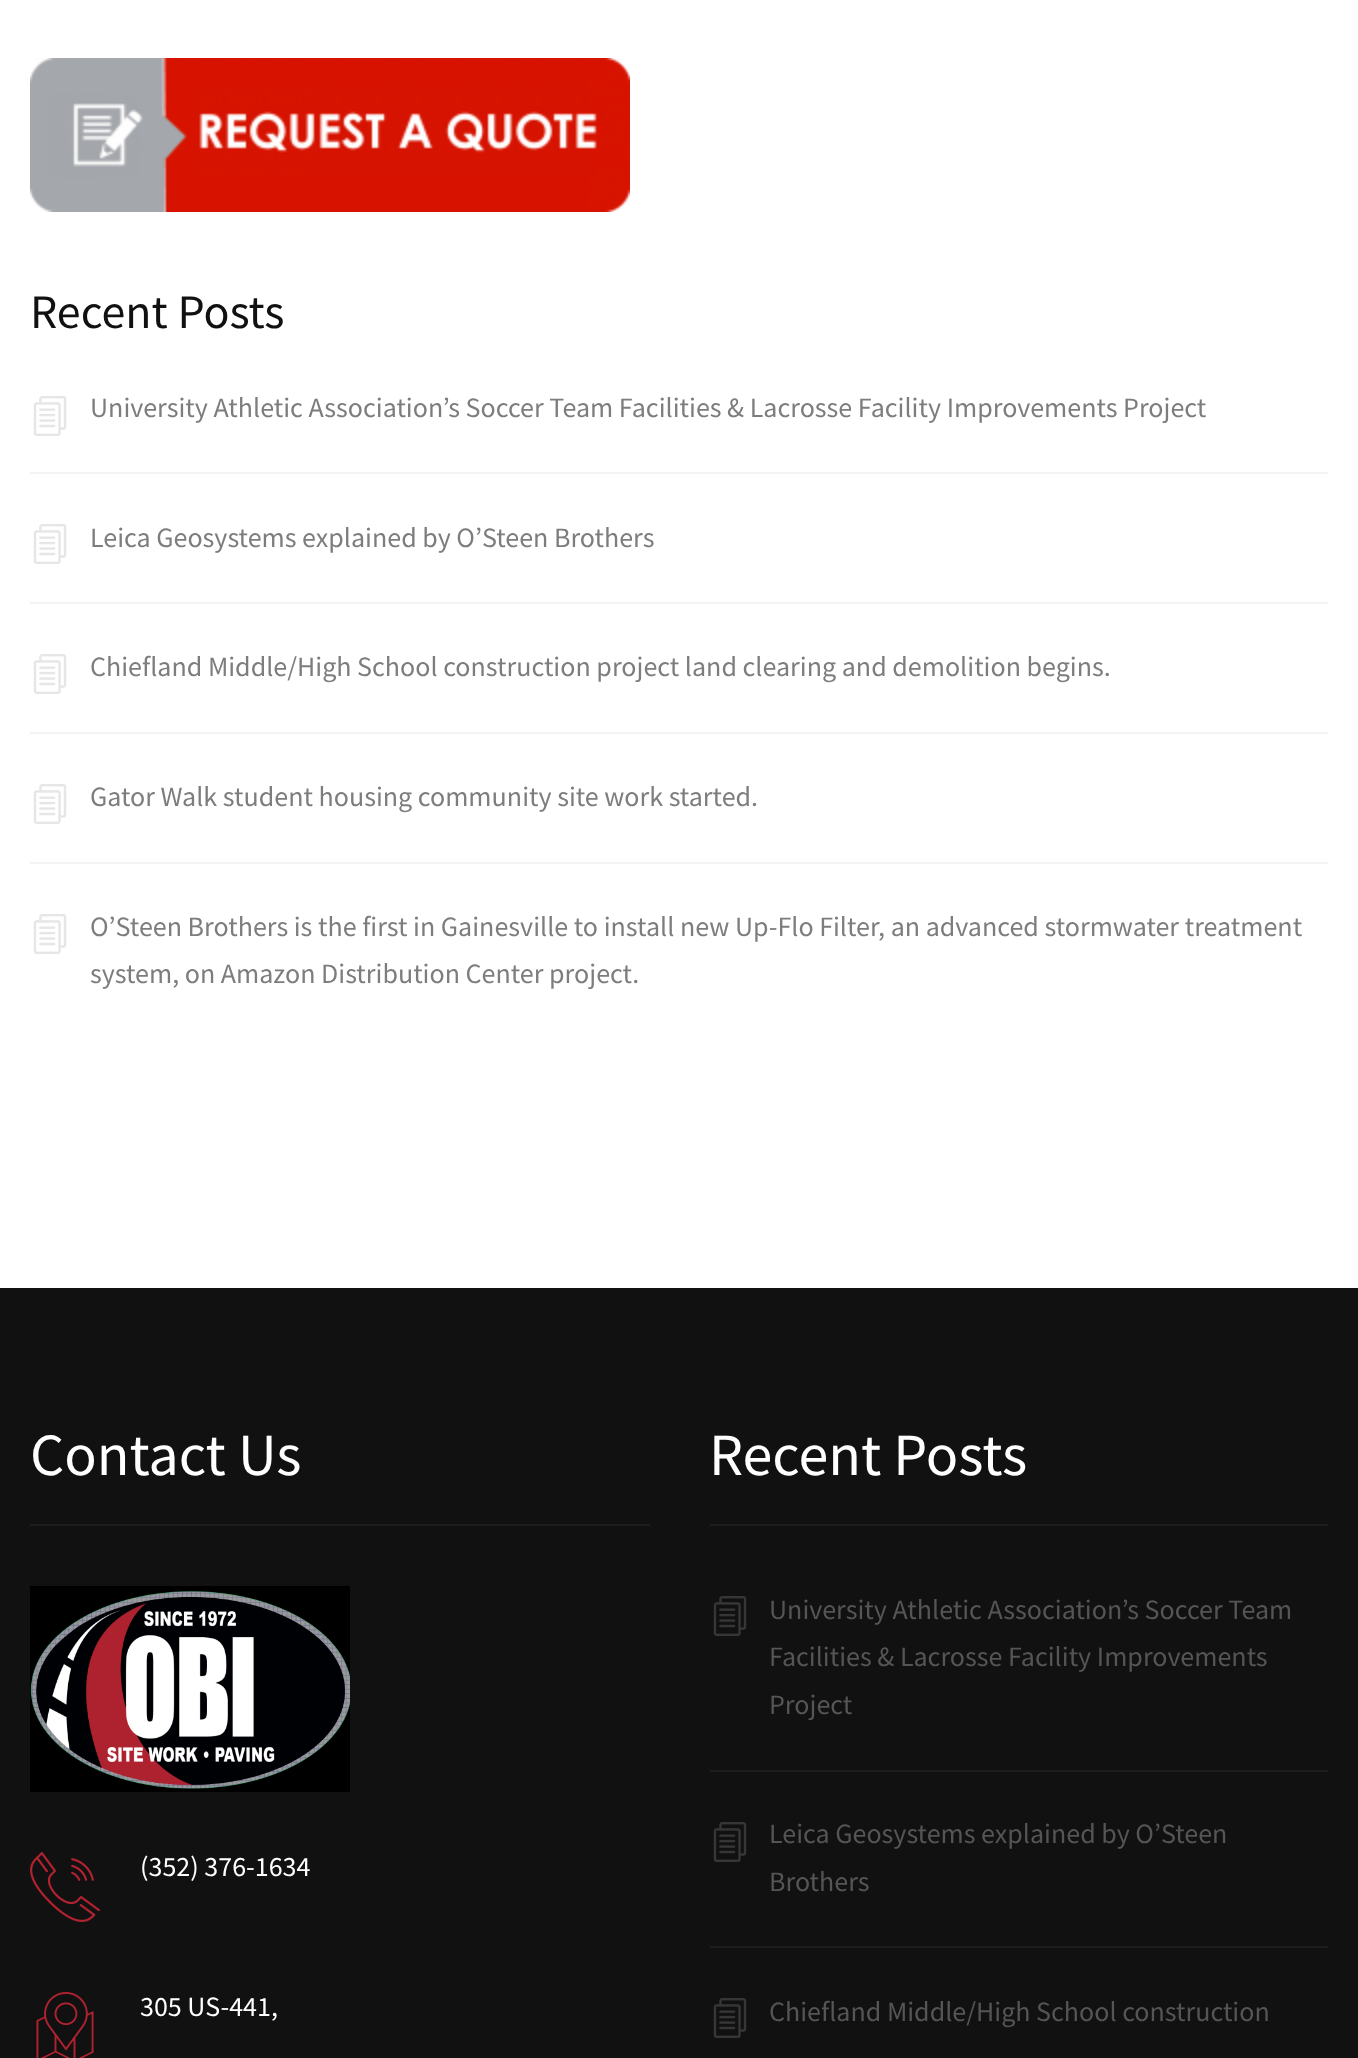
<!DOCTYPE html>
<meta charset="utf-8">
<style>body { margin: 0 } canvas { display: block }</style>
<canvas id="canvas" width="1358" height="2058"></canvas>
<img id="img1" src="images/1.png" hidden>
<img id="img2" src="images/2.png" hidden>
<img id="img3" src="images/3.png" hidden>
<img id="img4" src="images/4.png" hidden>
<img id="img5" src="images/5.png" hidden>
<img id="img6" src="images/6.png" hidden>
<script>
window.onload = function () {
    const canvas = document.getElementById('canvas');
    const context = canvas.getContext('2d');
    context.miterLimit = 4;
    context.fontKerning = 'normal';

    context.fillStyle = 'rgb(255, 255, 255)';
    context.fillRect(0, 0, 1358, 2058);
    context.drawImage(document.getElementById('img1'), 30, 58, 600, 154);
    context.drawImage(document.getElementById('img2'), 33, 396, 34, 40);
    context.fillStyle = 'rgb(243, 243, 243)';
    context.fillRect(30, 472, 1298, 2);
    context.drawImage(document.getElementById('img2'), 33, 524, 34, 40);
    context.fillRect(30, 602, 1298, 2);
    context.drawImage(document.getElementById('img2'), 33, 654, 34, 40);
    context.fillRect(30, 732, 1298, 2);
    context.drawImage(document.getElementById('img2'), 33, 784, 34, 40);
    context.fillRect(30, 862, 1298, 2);
    context.drawImage(document.getElementById('img2'), 33, 914, 34, 40);
    context.fillStyle = 'rgb(17, 17, 17)';
    context.fillRect(0, 1288, 1358, 770);
    context.fillStyle = 'rgb(30, 30, 30)';
    context.fillRect(30, 1524, 620, 2);
    context.drawImage(document.getElementById('img3'), 30, 1586, 320, 206);
    context.drawImage(document.getElementById('img4'), 30, 1852, 70, 70);
    context.drawImage(document.getElementById('img5'), 36, 1992, 58, 66);
    context.fillRect(710, 1524, 618, 2);
    context.drawImage(document.getElementById('img6'), 713, 1596, 34, 40);
    context.fillRect(710, 1770, 618, 2);
    context.drawImage(document.getElementById('img6'), 713, 1822, 34, 40);
    context.fillRect(710, 1946, 618, 2);
    context.drawImage(document.getElementById('img6'), 713, 1998, 34, 40);
    context.font = '48px Source Sans Pro';
    context.fillStyle = 'rgb(17, 17, 17)';
    context.fillText('Recent Posts', 30, 328);
    context.font = '28px Source Sans Pro';
    context.fillStyle = 'rgb(125, 125, 125)';
    context.fillText('University Athletic Association’s Soccer Team Facilities & Lacrosse Facility Improvements Project', 90, 417);
    context.fillText('Leica Geosystems explained by O’Steen Brothers', 90, 547);
    context.fillText('Chiefland Middle/High School construction project land clearing and demolition begins.', 90, 676);
    context.fillText('Gator Walk student housing community site work started.', 90, 806);
    context.fillText('O’Steen Brothers is the first in Gainesville to install new Up-Flo Filter, an advanced stormwater treatment', 90, 936);
    context.fillText('system, on Amazon Distribution Center project.', 90, 983);
    context.font = '60px Source Sans Pro';
    context.fillStyle = 'rgb(255, 255, 255)';
    context.fillText('Contact Us', 30, 1475);
    context.font = '28px Source Sans Pro';
    context.fillText('(352) 376-1634', 140, 1876);
    context.fillText('305 US-441,', 140, 2016);
    context.font = '60px Source Sans Pro';
    context.fillText('Recent Posts', 709, 1475);
    context.font = '28px Source Sans Pro';
    context.fillStyle = 'rgb(85, 85, 85)';
    context.fillText('University Athletic Association’s Soccer Team', 769, 1619);
    context.fillText('Facilities & Lacrosse Facility Improvements', 769, 1666);
    context.fillText('Project', 769, 1714);
    context.fillText('Leica Geosystems explained by O’Steen', 769, 1843);
    context.fillText('Brothers', 769, 1891);
    context.fillText('Chiefland Middle/High School construction', 769, 2021);
};
</script>
